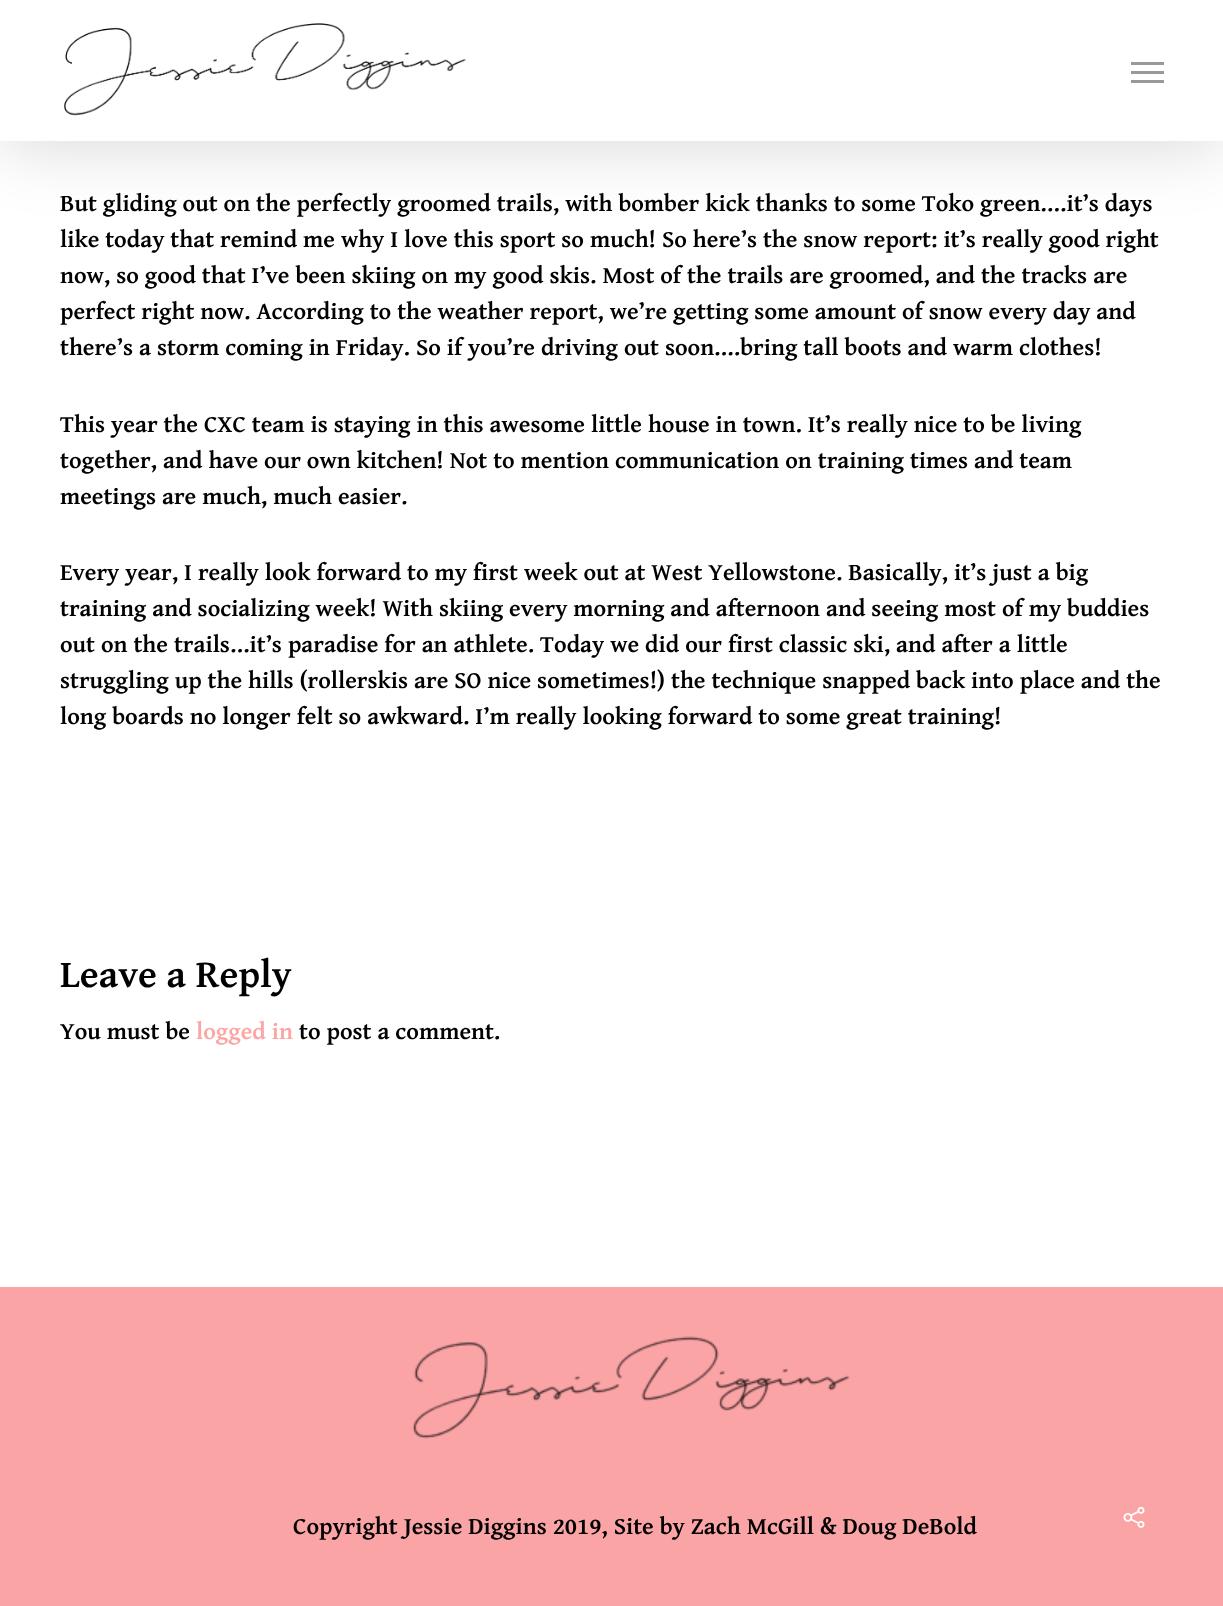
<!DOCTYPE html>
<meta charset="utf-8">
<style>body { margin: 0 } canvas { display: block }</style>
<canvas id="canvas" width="1223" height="1606"></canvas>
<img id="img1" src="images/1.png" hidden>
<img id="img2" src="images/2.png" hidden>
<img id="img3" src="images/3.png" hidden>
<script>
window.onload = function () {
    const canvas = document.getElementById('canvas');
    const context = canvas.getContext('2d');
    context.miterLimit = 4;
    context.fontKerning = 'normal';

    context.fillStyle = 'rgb(255, 255, 255)';
    context.fillRect(0, 0, 1223, 1606);
    context.fillStyle = 'rgba(0, 0, 0, 0.15)';
    context.filter = 'blur(34px)';
    context.beginPath();
    context.rect(0, 5, 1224, 141);
    context.fill();
    context.filter = 'none';
    context.fillStyle = 'rgb(255, 255, 255)';
    context.fillRect(0, 0, 1223, 141);
    context.drawImage(document.getElementById('img1'), 64, 23, 402, 93);
    context.fillStyle = 'rgb(153, 153, 153)';
    context.fillRect(1131, 62, 33, 3);
    context.fillRect(1131, 80, 33, 3);
    context.fillRect(1131, 71, 33, 3);
    context.fillStyle = 'rgb(251, 164, 166)';
    context.fillRect(0, 1287, 1223, 319);
    context.drawImage(document.getElementById('img2'), 412, 1336, 438, 103);
    context.drawImage(document.getElementById('img3'), 1123, 1506, 22, 22);
    context.font = 'bold 24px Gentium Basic';
    context.fillStyle = 'rgb(0, 0, 0)';
    context.fillText('But gliding out on the perfectly groomed trails, with bomber kick thanks to some Toko green….it’s days', 60, 211);
    context.fillText('like today that remind me why I love this sport so much! So here’s the snow report: it’s really good right', 60, 247);
    context.fillText('now, so good that I’ve been skiing on my good skis. Most of the trails are groomed, and the tracks are', 60, 283);
    context.fillText('perfect right now. According to the weather report, we’re getting some amount of snow every day and', 60, 319);
    context.fillText('there’s a storm coming in Friday. So if you’re driving out soon….bring tall boots and warm clothes!', 60, 355);
    context.fillText('This year the CXC team is staying in this awesome little house in town. It’s really nice to be living', 60, 432);
    context.fillText('together, and have our own kitchen! Not to mention communication on training times and team', 60, 468);
    context.fillText('meetings are much, much easier.', 60, 504);
    context.fillText('Every year, I really look forward to my first week out at West Yellowstone. Basically, it’s just a big', 60, 580);
    context.fillText('training and socializing week! With skiing every morning and afternoon and seeing most of my buddies', 60, 616);
    context.fillText('out on the trails…it’s paradise for an athlete. Today we did our first classic ski, and after a little', 60, 652);
    context.fillText('struggling up the hills (rollerskis are SO nice sometimes!) the technique snapped back into place and the', 60, 688);
    context.fillText('long boards no longer felt so awkward. I’m really looking forward to some great training!', 60, 724);
    context.font = 'bold 39px Gentium Basic';
    context.fillText('Leave a Reply', 60, 987);
    context.font = 'bold 24px Gentium Basic';
    context.fillText('You must be', 60, 1039);
    context.fillStyle = 'rgb(253, 165, 165)';
    context.fillText('logged in', 196, 1039);
    context.fillStyle = 'rgb(0, 0, 0)';
    context.fillText('to post a comment.', 299, 1039);
    context.fillText('Copyright Jessie Diggins 2019, Site by Zach McGill & Doug DeBold', 293, 1534);
};
</script>
